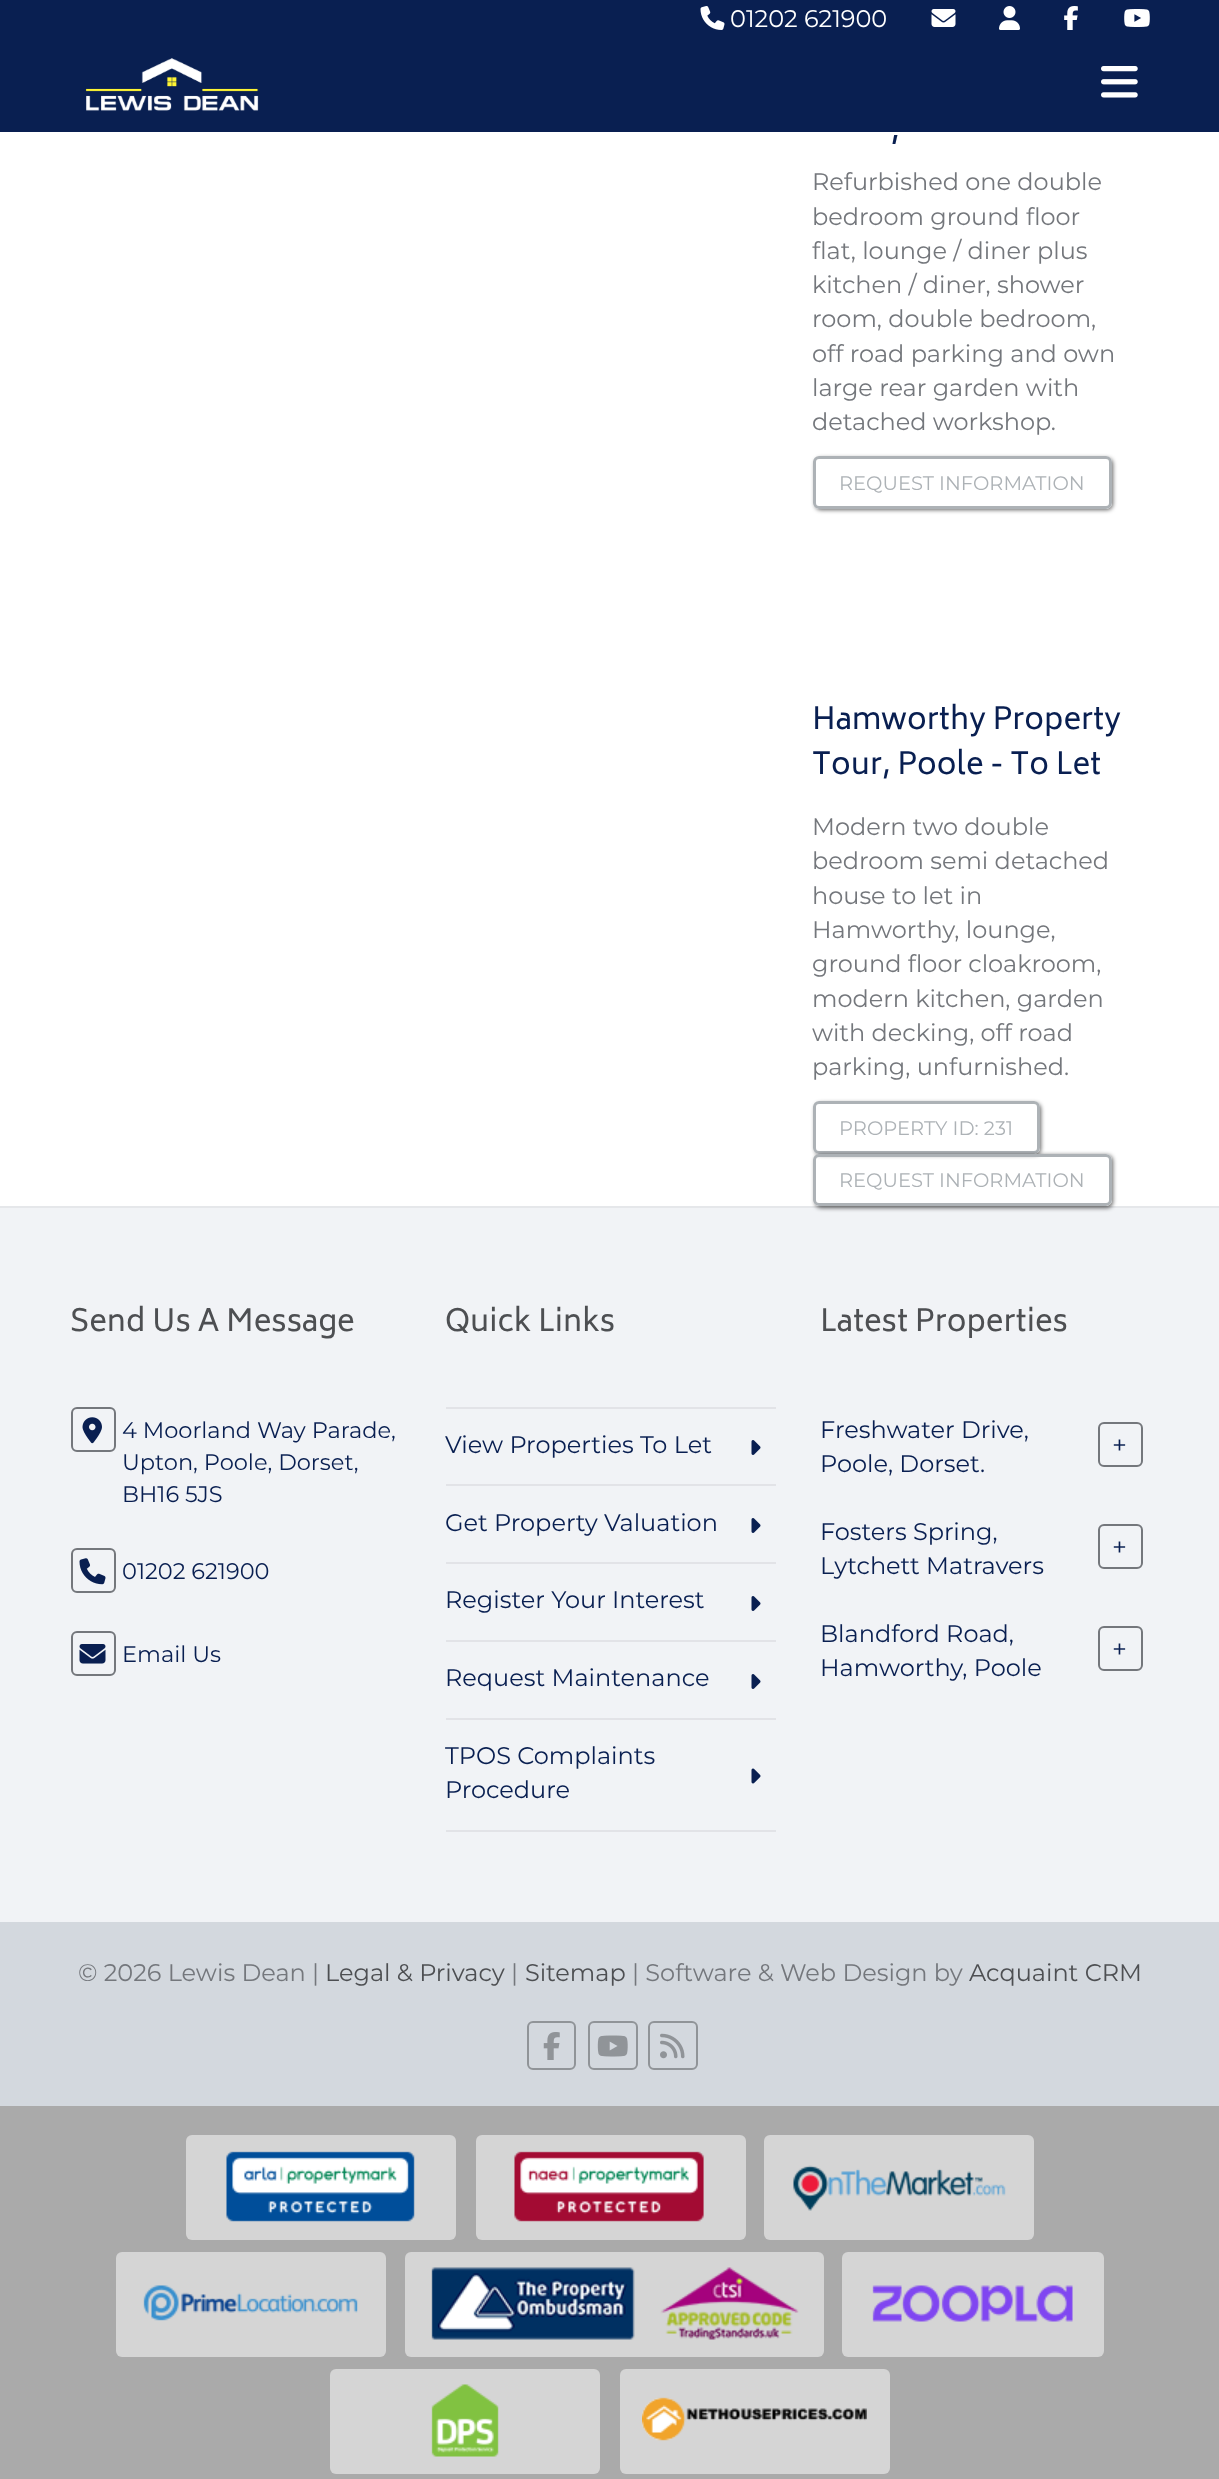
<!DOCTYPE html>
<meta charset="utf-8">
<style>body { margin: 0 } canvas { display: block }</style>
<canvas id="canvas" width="1219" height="2479"></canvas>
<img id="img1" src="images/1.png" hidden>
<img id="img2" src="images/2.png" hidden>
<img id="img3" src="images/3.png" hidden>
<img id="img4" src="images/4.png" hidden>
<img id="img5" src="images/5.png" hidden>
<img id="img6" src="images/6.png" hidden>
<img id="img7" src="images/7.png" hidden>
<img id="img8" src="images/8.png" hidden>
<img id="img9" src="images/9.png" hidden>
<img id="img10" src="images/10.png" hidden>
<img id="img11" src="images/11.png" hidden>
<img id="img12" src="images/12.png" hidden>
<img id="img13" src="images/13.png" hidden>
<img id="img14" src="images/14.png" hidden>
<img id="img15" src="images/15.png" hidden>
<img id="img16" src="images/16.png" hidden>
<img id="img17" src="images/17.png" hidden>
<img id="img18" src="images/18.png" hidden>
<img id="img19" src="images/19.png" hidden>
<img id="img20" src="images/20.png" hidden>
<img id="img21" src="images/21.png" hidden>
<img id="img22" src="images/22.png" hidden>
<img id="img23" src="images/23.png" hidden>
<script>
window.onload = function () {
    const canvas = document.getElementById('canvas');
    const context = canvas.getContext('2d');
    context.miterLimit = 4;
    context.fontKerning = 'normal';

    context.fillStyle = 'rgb(255, 255, 255)';
    context.fillRect(0, 0, 1219, 2479);
    context.fillStyle = 'rgb(9, 31, 81)';
    context.fillRect(0, 0, 1219, 132);
    context.drawImage(document.getElementById('img1'), 700, 6, 25, 24);
    context.drawImage(document.getElementById('img2'), 931, 9, 25, 18);
    context.drawImage(document.getElementById('img3'), 999, 6, 21, 24);
    context.drawImage(document.getElementById('img4'), 1064, 6, 14, 24);
    context.drawImage(document.getElementById('img5'), 1124, 9, 26, 18);
    context.drawImage(document.getElementById('img6'), 85, 58, 174, 53);
    context.drawImage(document.getElementById('img7'), 1101, 66, 37, 32);
    context.save();
    context.beginPath();
    context.moveTo(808, 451);
    context.lineTo(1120, 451);
    context.lineTo(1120, 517);
    context.lineTo(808, 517);
    context.closePath();
    context.moveTo(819, 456);
    context.lineTo(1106, 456);
    context.bezierCurveTo(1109.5, 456, 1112, 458.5, 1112, 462);
    context.lineTo(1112, 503);
    context.bezierCurveTo(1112, 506.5, 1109.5, 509, 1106, 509);
    context.lineTo(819, 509);
    context.bezierCurveTo(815.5, 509, 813, 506.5, 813, 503);
    context.lineTo(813, 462);
    context.bezierCurveTo(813, 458.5, 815.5, 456, 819, 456);
    context.closePath();
    context.clip('evenodd');
    context.fillStyle = 'rgba(0, 0, 0, 0.6)';
    context.filter = 'blur(2px)';
    context.beginPath();
    context.roundRect(815, 458, 298, 52, 6);
    context.fill();
    context.filter = 'none';
    context.restore();
    context.beginPath();
    context.roundRect(814.5, 457.5, 296, 50, 4.5);
    context.strokeStyle = 'rgb(173, 178, 182)';
    context.lineWidth = 3;
    context.stroke();
    context.save();
    context.beginPath();
    context.moveTo(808, 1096);
    context.lineTo(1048, 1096);
    context.lineTo(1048, 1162);
    context.lineTo(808, 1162);
    context.closePath();
    context.moveTo(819, 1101);
    context.lineTo(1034, 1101);
    context.bezierCurveTo(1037.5, 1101, 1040, 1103.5, 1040, 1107);
    context.lineTo(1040, 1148);
    context.bezierCurveTo(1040, 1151.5, 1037.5, 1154, 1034, 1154);
    context.lineTo(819, 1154);
    context.bezierCurveTo(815.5, 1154, 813, 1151.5, 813, 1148);
    context.lineTo(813, 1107);
    context.bezierCurveTo(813, 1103.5, 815.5, 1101, 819, 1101);
    context.closePath();
    context.clip('evenodd');
    context.fillStyle = 'rgba(0, 0, 0, 0.6)';
    context.filter = 'blur(2px)';
    context.beginPath();
    context.roundRect(815, 1103, 226, 52, 6);
    context.fill();
    context.filter = 'none';
    context.restore();
    context.beginPath();
    context.roundRect(814.5, 1102.5, 224, 50, 4.5);
    context.stroke();
    context.fillStyle = 'rgb(241, 243, 246)';
    context.fillRect(0, 1208, 1219, 714);
    context.fillStyle = 'rgb(229, 231, 234)';
    context.fillRect(0, 1206, 1219, 2);
    context.save();
    context.beginPath();
    context.moveTo(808, 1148);
    context.lineTo(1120, 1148);
    context.lineTo(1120, 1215);
    context.lineTo(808, 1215);
    context.closePath();
    context.moveTo(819, 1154);
    context.lineTo(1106, 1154);
    context.bezierCurveTo(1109.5, 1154, 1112, 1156.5, 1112, 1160);
    context.lineTo(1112, 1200);
    context.bezierCurveTo(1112, 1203.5, 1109.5, 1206, 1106, 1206);
    context.lineTo(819, 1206);
    context.bezierCurveTo(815.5, 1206, 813, 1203.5, 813, 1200);
    context.lineTo(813, 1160);
    context.bezierCurveTo(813, 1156.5, 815.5, 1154, 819, 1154);
    context.closePath();
    context.clip('evenodd');
    context.fillStyle = 'rgba(0, 0, 0, 0.6)';
    context.filter = 'blur(2px)';
    context.beginPath();
    context.roundRect(815, 1155, 298, 53, 6);
    context.fill();
    context.filter = 'none';
    context.restore();
    context.beginPath();
    context.roundRect(814.5, 1155.5, 296, 49, 4.5);
    context.stroke();
    context.beginPath();
    context.roundRect(72, 1408, 43, 43, 5);
    context.strokeStyle = 'rgb(116, 119, 124)';
    context.lineWidth = 2;
    context.stroke();
    context.drawImage(document.getElementById('img8'), 82, 1417, 20, 27);
    context.beginPath();
    context.roundRect(72, 1549, 43, 43, 5);
    context.stroke();
    context.drawImage(document.getElementById('img9'), 79, 1558, 27, 27);
    context.beginPath();
    context.roundRect(72, 1632, 43, 43, 5);
    context.stroke();
    context.drawImage(document.getElementById('img10'), 79, 1644, 27, 20);
    context.fillStyle = 'rgb(226, 227, 231)';
    context.fillRect(446, 1407, 330, 2);
    context.drawImage(document.getElementById('img11'), 751, 1440, 10, 15);
    context.fillRect(446, 1484, 330, 2);
    context.drawImage(document.getElementById('img11'), 751, 1518, 10, 15);
    context.fillRect(446, 1562, 330, 2);
    context.drawImage(document.getElementById('img11'), 751, 1596, 10, 15);
    context.fillRect(446, 1640, 330, 2);
    context.drawImage(document.getElementById('img11'), 751, 1674, 10, 15);
    context.fillRect(446, 1718, 330, 2);
    context.fillRect(446, 1830, 330, 2);
    context.drawImage(document.getElementById('img12'), 751, 1768, 10, 16);
    context.beginPath();
    context.roundRect(1099, 1423, 43, 43, 5);
    context.stroke();
    context.beginPath();
    context.roundRect(1099, 1525, 43, 43, 5);
    context.stroke();
    context.beginPath();
    context.roundRect(1099, 1627, 43, 43, 5);
    context.stroke();
    context.fillStyle = 'rgb(211, 216, 222)';
    context.fillRect(0, 1922, 1219, 184);
    context.beginPath();
    context.roundRect(528, 2022, 47, 47, 5);
    context.strokeStyle = 'rgb(144, 148, 152)';
    context.stroke();
    context.drawImage(document.getElementById('img13'), 543, 2032, 17, 28);
    context.beginPath();
    context.roundRect(589, 2022, 48, 47, 5);
    context.stroke();
    context.drawImage(document.getElementById('img14'), 597, 2035, 31, 22);
    context.beginPath();
    context.roundRect(649, 2022, 48, 47, 5);
    context.stroke();
    context.drawImage(document.getElementById('img15'), 660, 2033, 25, 26);
    context.fillStyle = 'rgb(170, 170, 170)';
    context.fillRect(0, 2106, 1219, 373);
    context.fillStyle = 'rgb(213, 213, 213)';
    context.beginPath();
    context.roundRect(186, 2135, 270, 105, 6);
    context.fill();
    context.drawImage(document.getElementById('img16'), 226, 2151, 189, 71);
    context.beginPath();
    context.roundRect(476, 2135, 270, 105, 6);
    context.fill();
    context.drawImage(document.getElementById('img17'), 514, 2151, 190, 71);
    context.beginPath();
    context.roundRect(764, 2135, 270, 105, 6);
    context.fill();
    context.drawImage(document.getElementById('img18'), 793, 2165, 213, 46);
    context.beginPath();
    context.roundRect(116, 2252, 270, 105, 6);
    context.fill();
    context.drawImage(document.getElementById('img19'), 143, 2285, 215, 36);
    context.beginPath();
    context.roundRect(405, 2252, 419, 105, 6);
    context.fill();
    context.drawImage(document.getElementById('img20'), 431, 2267, 368, 73);
    context.beginPath();
    context.roundRect(842, 2252, 262, 105, 6);
    context.fill();
    context.drawImage(document.getElementById('img21'), 872, 2285, 201, 37);
    context.beginPath();
    context.roundRect(330, 2369, 270, 105, 6);
    context.fill();
    context.drawImage(document.getElementById('img22'), 431, 2384, 68, 73);
    context.beginPath();
    context.roundRect(620, 2369, 270, 105, 6);
    context.fill();
    context.drawImage(document.getElementById('img23'), 642, 2397, 225, 44);
    context.font = '100 24px Montserrat';
    context.fillStyle = 'rgb(255, 255, 255)';
    context.fillText('01202 621900', 730, 27);
    context.font = 'bold 26px Biryani';
    context.fillStyle = 'rgb(9, 31, 81)';
    context.fillText(',', 891, 140);
    context.font = '100 24px Montserrat';
    context.fillStyle = 'rgb(116, 119, 124)';
    context.fillText('Refurbished one double', 812, 190);
    context.fillText('bedroom ground floor', 812, 225);
    context.fillText('flat, lounge / diner plus', 812, 259);
    context.fillText('kitchen / diner, shower', 812, 293);
    context.fillText('room, double bedroom,', 812, 327);
    context.fillText('off road parking and own', 812, 362);
    context.fillText('large rear garden with', 812, 396);
    context.fillText('detached workshop.', 812, 430);
    context.font = '100 19.5px Montserrat';
    context.fillStyle = 'rgb(173, 178, 182)';
    context.fillText('REQUEST INFORMATION', 839, 490);
    context.font = '30px Biryani';
    context.fillStyle = 'rgb(9, 31, 81)';
    context.fillText('Hamworthy Property', 812, 729);
    context.fillText('Tour, Poole - To Let', 812, 774);
    context.font = '100 24px Montserrat';
    context.fillStyle = 'rgb(116, 119, 124)';
    context.fillText('Modern two double', 812, 835);
    context.fillText('bedroom semi detached', 812, 869);
    context.fillText('house to let in', 812, 904);
    context.fillText('Hamworthy, lounge,', 812, 938);
    context.fillText('ground floor cloakroom,', 812, 972);
    context.fillText('modern kitchen, garden', 812, 1007);
    context.fillText('with decking, off road', 812, 1041);
    context.fillText('parking, unfurnished.', 812, 1075);
    context.font = '100 19.5px Montserrat';
    context.fillStyle = 'rgb(173, 178, 182)';
    context.fillText('PROPERTY ID: 231', 839, 1135);
    context.fillText('REQUEST INFORMATION', 839, 1187);
    context.font = '30px Biryani';
    context.fillStyle = 'rgb(77, 79, 82)';
    context.fillText('Send Us A Message', 70, 1331);
    context.font = '100 22.5px Montserrat';
    context.fillStyle = 'rgb(9, 31, 81)';
    context.fillText('4 Moorland Way Parade,', 122, 1438);
    context.fillText('Upton, Poole, Dorset,', 122, 1470);
    context.fillText('BH16 5JS', 122, 1502);
    context.fillText('01202 621900', 122, 1579);
    context.fillText('Email Us', 122, 1662);
    context.font = '30px Biryani';
    context.fillStyle = 'rgb(77, 79, 82)';
    context.fillText('Quick Links', 445, 1331);
    context.font = '100 24px Montserrat';
    context.fillStyle = 'rgb(9, 31, 81)';
    context.fillText('View Properties To Let', 445, 1453);
    context.fillText('Get Property Valuation', 445, 1531);
    context.fillText('Register Your Interest', 445, 1608);
    context.fillText('Request Maintenance', 445, 1686);
    context.fillText('TPOS Complaints', 445, 1764);
    context.fillText('Procedure', 445, 1798);
    context.font = '30px Biryani';
    context.fillStyle = 'rgb(77, 79, 82)';
    context.fillText('Latest Properties', 820, 1331);
    context.font = '100 24px Montserrat';
    context.fillStyle = 'rgb(9, 31, 81)';
    context.fillText('Freshwater Drive,', 820, 1438);
    context.font = '100 26px Montserrat';
    context.fillText('+', 1112, 1454);
    context.font = '100 24px Montserrat';
    context.fillText('Poole, Dorset.', 820, 1472);
    context.fillText('Fosters Spring,', 820, 1540);
    context.font = '100 26px Montserrat';
    context.fillText('+', 1112, 1556);
    context.font = '100 24px Montserrat';
    context.fillText('Lytchett Matravers', 820, 1574);
    context.fillText('Blandford Road,', 820, 1642);
    context.font = '100 26px Montserrat';
    context.fillText('+', 1112, 1658);
    context.font = '100 24px Montserrat';
    context.fillText('Hamworthy, Poole', 820, 1676);
    context.fillStyle = 'rgb(116, 119, 124)';
    context.fillText('© 2026 Lewis Dean |', 78, 1981);
    context.fillStyle = 'rgb(77, 79, 82)';
    context.fillText('Legal & Privacy', 325, 1981);
    context.fillStyle = 'rgb(116, 119, 124)';
    context.fillText('|', 511, 1981);
    context.fillStyle = 'rgb(77, 79, 82)';
    context.fillText('Sitemap', 525, 1981);
    context.fillStyle = 'rgb(116, 119, 124)';
    context.fillText('| Software & Web Design by', 632, 1981);
    context.fillStyle = 'rgb(77, 79, 82)';
    context.fillText('Acquaint CRM', 969, 1981);
};
</script>
